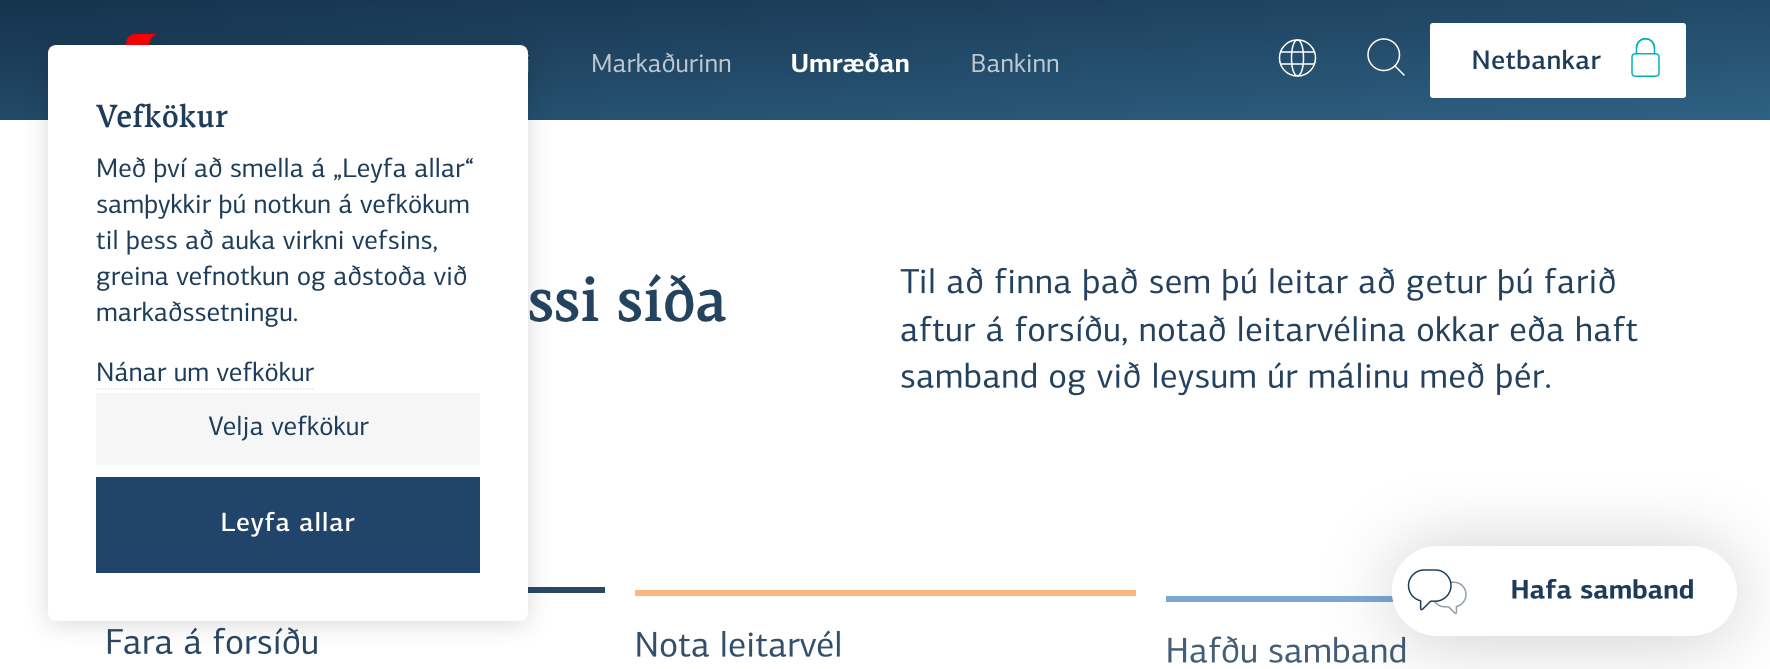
<!DOCTYPE html>
<meta charset="utf-8">
<style>body { margin: 0 } canvas { display: block }</style>
<canvas id="canvas" width="1770" height="669"></canvas>
<img id="img1" src="images/1.png" hidden>
<img id="img2" src="images/2.png" hidden>
<img id="img3" src="images/3.png" hidden>
<img id="img4" src="images/4.png" hidden>
<img id="img5" src="images/5.png" hidden>
<img id="img6" src="images/6.png" hidden>
<img id="img7" src="images/7.png" hidden>
<img id="img8" src="images/19.png" hidden>
<img id="img9" src="images/8.png" hidden>
<img id="img10" src="images/9.png" hidden>
<img id="img11" src="images/10.png" hidden>
<img id="img12" src="images/11.png" hidden>
<img id="img13" src="images/12.png" hidden>
<img id="img14" src="images/13.png" hidden>
<img id="img15" src="images/14.png" hidden>
<img id="img16" src="images/15.png" hidden>
<img id="img17" src="images/16.png" hidden>
<img id="img18" src="images/17.png" hidden>
<img id="img19" src="images/18.png" hidden>
<img id="img20" src="images/20.png" hidden>
<img id="img21" src="images/21.png" hidden>
<img id="img22" src="images/22.png" hidden>
<img id="img23" src="images/23.png" hidden>
<script>
window.onload = function () {
    const canvas = document.getElementById('canvas');
    const context = canvas.getContext('2d');
    context.miterLimit = 4;
    context.fontKerning = 'normal';
    let gradient;

    context.fillStyle = 'rgb(255, 255, 255)';
    context.fillRect(0, 0, 1770, 669);
    gradient = context.createLinearGradient(877, -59, 893, 179);
    gradient.addColorStop(0, 'rgb(21, 50, 76)');
    gradient.addColorStop(1, 'rgb(47, 97, 131)');
    context.fillStyle = gradient;
    context.fillRect(0, 0, 1770, 120);
    context.fillStyle = 'rgb(255, 0, 0)';
    context.beginPath();
    context.moveTo(157, 87);
    context.bezierCurveTo(166, 87, 160, 76, 159, 72);
    context.lineTo(153, 56);
    context.lineTo(144, 84);
    context.bezierCurveTo(142, 86, 138, 85, 137, 82);
    context.lineTo(148, 48);
    context.bezierCurveTo(150, 42, 151, 34, 159, 34);
    context.lineTo(139, 34);
    context.bezierCurveTo(131, 34, 128, 35, 126, 43);
    context.lineTo(118, 67);
    context.bezierCurveTo(117, 72, 115, 84, 108, 86);
    context.lineTo(157, 87);
    context.fill('evenodd');
    context.drawImage(document.getElementById('img1'), 528, 54, 1, 18);
    context.drawImage(document.getElementById('img2'), 593, 52, 138, 21);
    context.drawImage(document.getElementById('img3'), 792, 52, 117, 21);
    context.drawImage(document.getElementById('img4'), 972, 53, 87, 20);
    context.beginPath();
    context.arc(1297.5, 58, 18, 0, 2 * Math.PI);
    context.strokeStyle = 'rgb(255, 255, 255)';
    context.lineWidth = 1.5;
    context.stroke();
    context.beginPath();
    context.moveTo(1303.5, 58);
    context.bezierCurveTo(1303.5, 81.5, 1291.5, 81.5, 1291.5, 58);
    context.bezierCurveTo(1291.5, 34, 1303.5, 34, 1303.5, 58);
    context.closePath();
    context.stroke();
    context.beginPath();
    context.moveTo(1281.5, 52);
    context.lineTo(1313.5, 52);
    context.moveTo(1281.5, 64);
    context.lineTo(1313.5, 64);
    context.lineCap = 'square';
    context.stroke();
    context.drawImage(document.getElementById('img5'), 1367, 38, 38, 38);
    context.fillStyle = 'rgb(255, 255, 255)';
    context.beginPath();
    context.roundRect(1430, 23, 256, 75, 3);
    context.fill();
    context.drawImage(document.getElementById('img6'), 1473, 49, 128, 21);
    context.drawImage(document.getElementById('img7'), 1631, 38, 29, 39);
    context.fillStyle = 'rgb(43, 72, 99)';
    context.fillRect(528, 587, 77, 6);
    context.drawImage(document.getElementById('img8'), 107, 627, 210, 28);
    context.fillStyle = 'rgba(0, 0, 0, 0.15)';
    context.filter = 'blur(12px)';
    context.beginPath();
    context.roundRect(48, 48, 480, 576, 8);
    context.fill();
    context.filter = 'none';
    context.fillStyle = 'rgb(255, 255, 255)';
    context.beginPath();
    context.roundRect(48, 45, 480, 576, 8);
    context.fill();
    context.drawImage(document.getElementById('img9'), 98, 157, 375, 26);
    context.drawImage(document.getElementById('img10'), 97, 193, 372, 26);
    context.drawImage(document.getElementById('img11'), 96, 229, 341, 26);
    context.drawImage(document.getElementById('img12'), 97, 265, 369, 26);
    context.drawImage(document.getElementById('img13'), 97, 301, 200, 26);
    context.drawImage(document.getElementById('img14'), 98, 361, 216, 21);
    context.beginPath();
    context.moveTo(96, 389);
    context.lineTo(313.5, 389);
    context.strokeStyle = 'rgb(229, 229, 229)';
    context.lineCap = 'butt';
    context.setLineDash([1.5, 1.5]);
    context.stroke();
    context.fillStyle = 'rgb(246, 246, 246)';
    context.fillRect(96, 393, 384, 72);
    context.drawImage(document.getElementById('img15'), 208, 415, 161, 26);
    context.fillStyle = 'rgb(32, 68, 106)';
    context.fillRect(96, 477, 384, 96);
    context.drawImage(document.getElementById('img16'), 222, 511, 133, 26);
    context.drawImage(document.getElementById('img17'), 900, 267, 715, 34);
    context.drawImage(document.getElementById('img18'), 901, 315, 737, 31);
    context.drawImage(document.getElementById('img19'), 901, 361, 649, 35);
    context.fillStyle = 'rgb(255, 182, 125)';
    context.fillRect(635, 590, 501, 6);
    context.drawImage(document.getElementById('img20'), 637, 630, 203, 27);
    context.fillStyle = 'rgb(124, 167, 213)';
    context.fillRect(1166, 596, 228, 6);
    context.drawImage(document.getElementById('img21'), 1168, 636, 238, 27);
    context.fillStyle = 'rgba(0, 0, 0, 0.2)';
    context.filter = 'blur(37.5px)';
    context.beginPath();
    context.roundRect(1392, 549, 345, 90, 45);
    context.fill();
    context.filter = 'none';
    context.fillStyle = 'rgb(255, 255, 255)';
    context.beginPath();
    context.roundRect(1392, 546, 345, 90, 45);
    context.fill();
    context.drawImage(document.getElementById('img22'), 1392, 569, 75, 46);
    context.drawImage(document.getElementById('img23'), 1512, 578, 181, 21);
    context.letterSpacing = '0.75px';
    context.font = '500 32.5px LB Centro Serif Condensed';
    context.fillStyle = 'rgb(30, 61, 90)';
    context.fillText('Vefkökur', 96, 127);
    context.font = '500 63px LB Centro Serif Condensed';
    context.fillStyle = 'rgb(36, 67, 95)';
    context.fillText('ssi síða', 528, 321);
};
</script>
